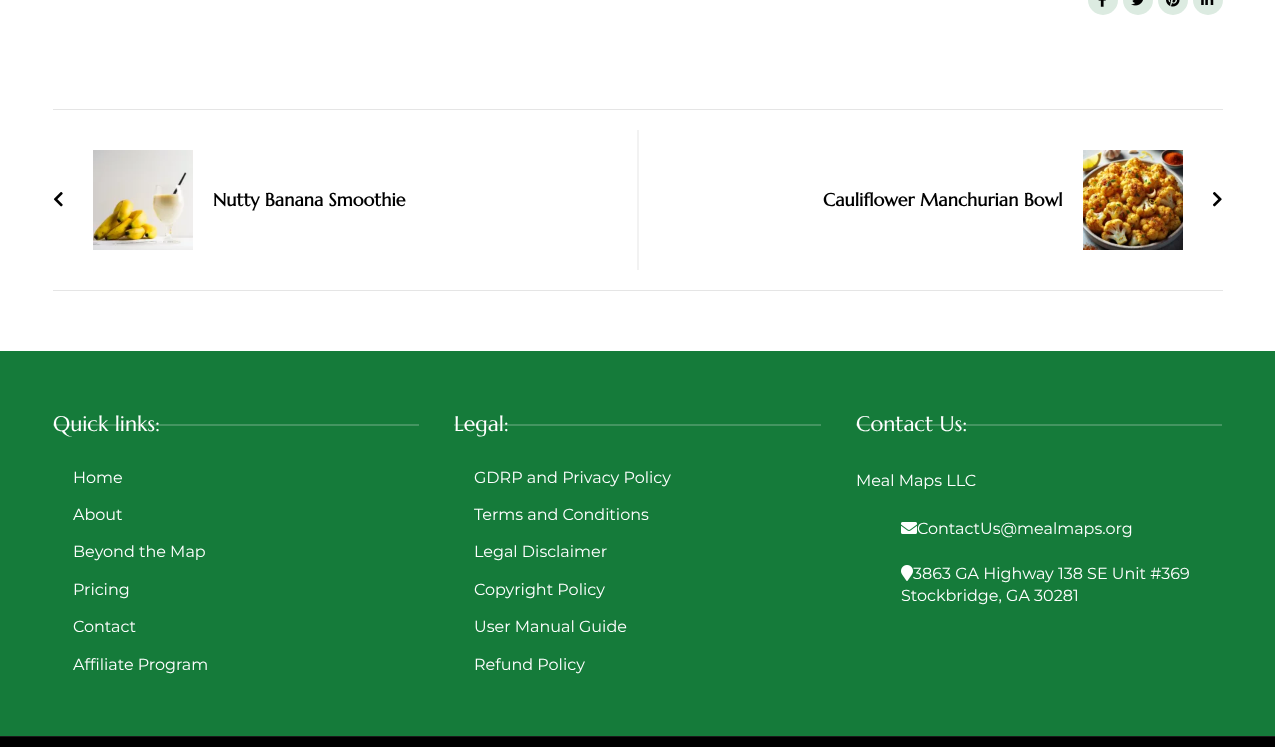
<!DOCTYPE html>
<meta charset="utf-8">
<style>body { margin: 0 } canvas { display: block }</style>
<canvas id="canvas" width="1275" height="747"></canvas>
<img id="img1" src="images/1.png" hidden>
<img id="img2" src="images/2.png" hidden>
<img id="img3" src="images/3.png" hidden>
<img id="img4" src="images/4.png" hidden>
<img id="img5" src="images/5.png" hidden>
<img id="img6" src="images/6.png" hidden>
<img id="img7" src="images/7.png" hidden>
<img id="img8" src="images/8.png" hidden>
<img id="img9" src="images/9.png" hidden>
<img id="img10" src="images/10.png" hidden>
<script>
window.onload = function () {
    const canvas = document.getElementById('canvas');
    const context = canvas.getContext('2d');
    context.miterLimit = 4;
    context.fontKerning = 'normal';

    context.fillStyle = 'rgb(255, 255, 255)';
    context.fillRect(0, 0, 1275, 747);
    context.fillStyle = 'rgb(220, 235, 225)';
    context.beginPath();
    context.arc(1103, 0, 15, 0, 2 * Math.PI);
    context.fill();
    context.drawImage(document.getElementById('img1'), 1098, 0, 8, 7);
    context.beginPath();
    context.arc(1138, 0, 15, 0, 2 * Math.PI);
    context.fill();
    context.drawImage(document.getElementById('img2'), 1131, 0, 12, 6);
    context.beginPath();
    context.arc(1173, 0, 15, 0, 2 * Math.PI);
    context.fill();
    context.drawImage(document.getElementById('img3'), 1166, 0, 14, 7);
    context.beginPath();
    context.arc(1208, 0, 15, 0, 2 * Math.PI);
    context.fill();
    context.drawImage(document.getElementById('img4'), 1201, 0, 13, 5);
    context.fillStyle = 'rgb(229, 229, 229)';
    context.fillRect(53, 109, 1170, 1);
    context.fillRect(53, 290, 1170, 1);
    context.drawImage(document.getElementById('img5'), 53, 192, 10, 15);
    context.drawImage(document.getElementById('img6'), 93, 150, 100, 100);
    context.fillStyle = 'rgb(242, 242, 242)';
    context.fillRect(637, 130, 2, 140);
    context.drawImage(document.getElementById('img7'), 1083, 150, 100, 100);
    context.drawImage(document.getElementById('img8'), 1213, 192, 9, 15);
    context.fillStyle = 'rgb(0, 0, 0)';
    context.fillRect(0, 737, 1275, 10);
    context.fillStyle = 'rgb(21, 123, 58)';
    context.fillRect(0, 351, 1275, 385);
    context.fillStyle = 'rgb(68, 149, 97)';
    context.fillRect(53, 424, 366, 2);
    context.fillRect(454, 424, 367, 2);
    context.fillRect(856, 424, 366, 2);
    context.drawImage(document.getElementById('img9'), 901, 522, 16, 12);
    context.drawImage(document.getElementById('img10'), 901, 565, 12, 16);
    context.fillStyle = 'rgb(26, 26, 26)';
    context.fillRect(0, 736, 1275, 1);
    context.font = 'bold 18px Marcellus';
    context.fillStyle = 'rgb(0, 0, 0)';
    context.fillText('Nutty Banana Smoothie', 213, 206);
    context.fillText('Cauliflower Manchurian Bowl', 823, 206);
    context.font = '21.25px Marcellus';
    context.fillStyle = 'rgb(255, 255, 255)';
    context.fillText('Quick links:', 53, 431);
    context.font = '16px Montserrat';
    context.fillText('Home', 73, 483);
    context.fillText('About', 73, 520);
    context.fillText('Beyond the Map', 73, 557);
    context.fillText('Pricing', 73, 595);
    context.fillText('Contact', 73, 632);
    context.fillText('Affiliate Program', 73, 670);
    context.font = '21.25px Marcellus';
    context.fillText('Legal:', 454, 431);
    context.font = '16px Montserrat';
    context.fillText('GDRP and Privacy Policy', 474, 483);
    context.fillText('Terms and Conditions', 474, 520);
    context.fillText('Legal Disclaimer', 474, 557);
    context.fillText('Copyright Policy', 474, 595);
    context.fillText('User Manual Guide', 474, 632);
    context.fillText('Refund Policy', 474, 670);
    context.font = '21.25px Marcellus';
    context.fillText('Contact Us:', 856, 431);
    context.font = '16px Montserrat';
    context.fillText('Meal Maps LLC', 856, 486);
    context.fillText('ContactUs@mealmaps.org', 917, 534);
    context.fillText('3863 GA Highway 138 SE Unit #369', 913, 579);
    context.fillText('Stockbridge, GA 30281', 901, 601);
};
</script>
